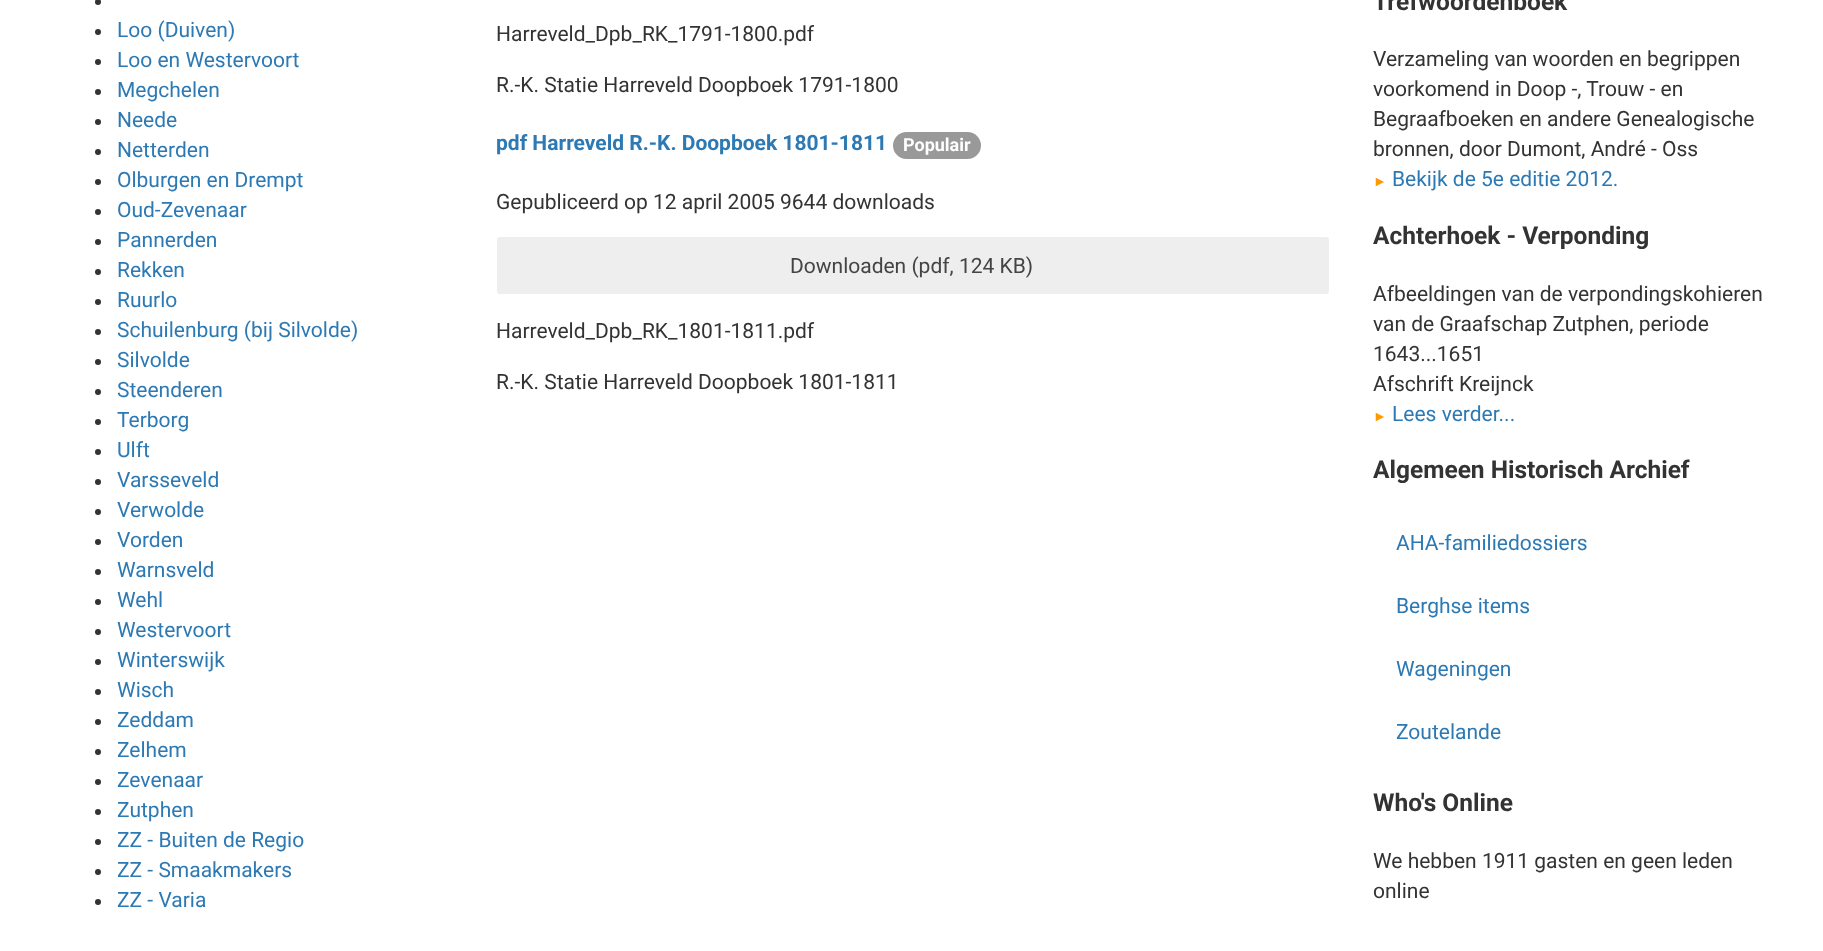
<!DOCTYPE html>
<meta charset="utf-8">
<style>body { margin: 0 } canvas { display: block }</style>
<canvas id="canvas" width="1823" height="951"></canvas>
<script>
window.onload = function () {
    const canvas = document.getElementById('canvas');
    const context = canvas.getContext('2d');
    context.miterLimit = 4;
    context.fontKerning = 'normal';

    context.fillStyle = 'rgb(255, 255, 255)';
    context.fillRect(0, 0, 1823, 951);
    context.fillStyle = 'rgb(51, 51, 51)';
    context.beginPath();
    context.arc(98, 2, 3, 0, 2 * Math.PI);
    context.fill();
    context.beginPath();
    context.arc(98, 32, 3, 0, 2 * Math.PI);
    context.fill();
    context.beginPath();
    context.arc(98, 62, 3, 0, 2 * Math.PI);
    context.fill();
    context.beginPath();
    context.arc(98, 92, 3, 0, 2 * Math.PI);
    context.fill();
    context.beginPath();
    context.arc(98, 122, 3, 0, 2 * Math.PI);
    context.fill();
    context.beginPath();
    context.arc(98, 152, 3, 0, 2 * Math.PI);
    context.fill();
    context.beginPath();
    context.arc(98, 182, 3, 0, 2 * Math.PI);
    context.fill();
    context.beginPath();
    context.arc(98, 212, 3, 0, 2 * Math.PI);
    context.fill();
    context.beginPath();
    context.arc(98, 242, 3, 0, 2 * Math.PI);
    context.fill();
    context.beginPath();
    context.arc(98, 272, 3, 0, 2 * Math.PI);
    context.fill();
    context.beginPath();
    context.arc(98, 302, 3, 0, 2 * Math.PI);
    context.fill();
    context.beginPath();
    context.arc(98, 332, 3, 0, 2 * Math.PI);
    context.fill();
    context.beginPath();
    context.arc(98, 362, 3, 0, 2 * Math.PI);
    context.fill();
    context.beginPath();
    context.arc(98, 392, 3, 0, 2 * Math.PI);
    context.fill();
    context.beginPath();
    context.arc(98, 422, 3, 0, 2 * Math.PI);
    context.fill();
    context.beginPath();
    context.arc(98, 452, 3, 0, 2 * Math.PI);
    context.fill();
    context.beginPath();
    context.arc(98, 482, 3, 0, 2 * Math.PI);
    context.fill();
    context.beginPath();
    context.arc(98, 512, 3, 0, 2 * Math.PI);
    context.fill();
    context.beginPath();
    context.arc(98, 542, 3, 0, 2 * Math.PI);
    context.fill();
    context.beginPath();
    context.arc(98, 572, 3, 0, 2 * Math.PI);
    context.fill();
    context.beginPath();
    context.arc(98, 602, 3, 0, 2 * Math.PI);
    context.fill();
    context.beginPath();
    context.arc(98, 632, 3, 0, 2 * Math.PI);
    context.fill();
    context.beginPath();
    context.arc(98, 662, 3, 0, 2 * Math.PI);
    context.fill();
    context.beginPath();
    context.arc(98, 692, 3, 0, 2 * Math.PI);
    context.fill();
    context.beginPath();
    context.arc(98, 722, 3, 0, 2 * Math.PI);
    context.fill();
    context.beginPath();
    context.arc(98, 752, 3, 0, 2 * Math.PI);
    context.fill();
    context.beginPath();
    context.arc(98, 782, 3, 0, 2 * Math.PI);
    context.fill();
    context.beginPath();
    context.arc(98, 812, 3, 0, 2 * Math.PI);
    context.fill();
    context.beginPath();
    context.arc(98, 842, 3, 0, 2 * Math.PI);
    context.fill();
    context.beginPath();
    context.arc(98, 872, 3, 0, 2 * Math.PI);
    context.fill();
    context.beginPath();
    context.arc(98, 902, 3, 0, 2 * Math.PI);
    context.fill();
    context.fillStyle = 'rgb(153, 153, 153)';
    context.beginPath();
    context.roundRect(893, 132, 88, 27, 13.5);
    context.fill();
    context.fillStyle = 'rgb(238, 238, 238)';
    context.beginPath();
    context.roundRect(498, 238, 830, 55, 2);
    context.fill();
    context.strokeStyle = 'rgb(238, 238, 238)';
    context.lineWidth = 2;
    context.stroke();
    context.font = '21px Roboto';
    context.fillStyle = 'rgb(44, 121, 179)';
    context.fillText('Loo (Duiven)', 117, 37);
    context.fillText('Loo en Westervoort', 117, 67);
    context.fillText('Megchelen', 117, 97);
    context.fillText('Neede', 117, 127);
    context.fillText('Netterden', 117, 157);
    context.fillText('Olburgen en Drempt', 117, 187);
    context.fillText('Oud-Zevenaar', 117, 217);
    context.fillText('Pannerden', 117, 247);
    context.fillText('Rekken', 117, 277);
    context.fillText('Ruurlo', 117, 307);
    context.fillText('Schuilenburg (bij Silvolde)', 117, 337);
    context.fillText('Silvolde', 117, 367);
    context.fillText('Steenderen', 117, 397);
    context.fillText('Terborg', 117, 427);
    context.fillText('Ulft', 117, 457);
    context.fillText('Varsseveld', 117, 487);
    context.fillText('Verwolde', 117, 517);
    context.fillText('Vorden', 117, 547);
    context.fillText('Warnsveld', 117, 577);
    context.fillText('Wehl', 117, 607);
    context.fillText('Westervoort', 117, 637);
    context.fillText('Winterswijk', 117, 667);
    context.fillText('Wisch', 117, 697);
    context.fillText('Zeddam', 117, 727);
    context.fillText('Zelhem', 117, 757);
    context.fillText('Zevenaar', 117, 787);
    context.fillText('Zutphen', 117, 817);
    context.fillText('ZZ - Buiten de Regio', 117, 847);
    context.fillText('ZZ - Smaakmakers', 117, 877);
    context.fillText('ZZ - Varia', 117, 907);
    context.fillStyle = 'rgb(51, 51, 51)';
    context.fillText('Harreveld_Dpb_RK_1791-1800.pdf', 496, 41);
    context.fillText('R.-K. Statie Harreveld Doopboek 1791-1800', 496, 92);
    context.font = 'bold 21px Roboto';
    context.fillStyle = 'rgb(44, 121, 179)';
    context.fillText('pdf Harreveld R.-K. Doopboek 1801-1811', 496, 150);
    context.font = 'bold 18px Roboto';
    context.fillStyle = 'rgb(255, 255, 255)';
    context.fillText('Populair', 903, 151);
    context.font = '21px Roboto';
    context.fillStyle = 'rgb(51, 51, 51)';
    context.fillText('Gepubliceerd op 12 april 2005 9644 downloads', 496, 209);
    context.fillStyle = 'rgb(68, 68, 68)';
    context.fillText('Downloaden (pdf, 124 KB)', 790, 273);
    context.fillStyle = 'rgb(51, 51, 51)';
    context.fillText('Harreveld_Dpb_RK_1801-1811.pdf', 496, 338);
    context.fillText('R.-K. Statie Harreveld Doopboek 1801-1811', 496, 389);
    context.font = 'bold 24.5px Roboto';
    context.fillText('Trefwoordenboek', 1373, 10);
    context.font = '21px Roboto';
    context.fillText('Verzameling van woorden en begrippen', 1373, 66);
    context.fillText('voorkomend in Doop -, Trouw - en', 1373, 96);
    context.fillText('Begraafboeken en andere Genealogische', 1373, 126);
    context.fillText('bronnen, door Dumont, André - Oss', 1373, 156);
    context.font = '14px Liberation Sans';
    context.fillStyle = 'rgb(255, 153, 0)';
    context.fillText('►', 1373, 186);
    context.font = '21px Roboto';
    context.fillStyle = 'rgb(44, 121, 179)';
    context.fillText('Bekijk de 5e editie 2012.', 1392, 186);
    context.font = 'bold 24.5px Roboto';
    context.fillStyle = 'rgb(51, 51, 51)';
    context.fillText('Achterhoek - Verponding', 1373, 244);
    context.font = '21px Roboto';
    context.fillText('Afbeeldingen van de verpondingskohieren', 1373, 301);
    context.fillText('van de Graafschap Zutphen, periode', 1373, 331);
    context.fillText('1643...1651', 1373, 361);
    context.fillText('Afschrift Kreijnck', 1373, 391);
    context.font = '14px Liberation Sans';
    context.fillStyle = 'rgb(255, 153, 0)';
    context.fillText('►', 1373, 421);
    context.font = '21px Roboto';
    context.fillStyle = 'rgb(44, 121, 179)';
    context.fillText('Lees verder...', 1392, 421);
    context.font = 'bold 24.5px Roboto';
    context.fillStyle = 'rgb(51, 51, 51)';
    context.fillText('Algemeen Historisch Archief', 1373, 478);
    context.font = '21px Roboto';
    context.fillStyle = 'rgb(44, 121, 179)';
    context.fillText('AHA-familiedossiers', 1396, 550);
    context.fillText('Berghse items', 1396, 613);
    context.fillText('Wageningen', 1396, 676);
    context.fillText('Zoutelande', 1396, 739);
    context.font = 'bold 24.5px Roboto';
    context.fillStyle = 'rgb(51, 51, 51)';
    context.fillText('Who\'s Online', 1373, 811);
    context.font = '21px Roboto';
    context.fillText('We hebben 1911 gasten en geen leden', 1373, 868);
    context.fillText('online', 1373, 898);
};
</script>
